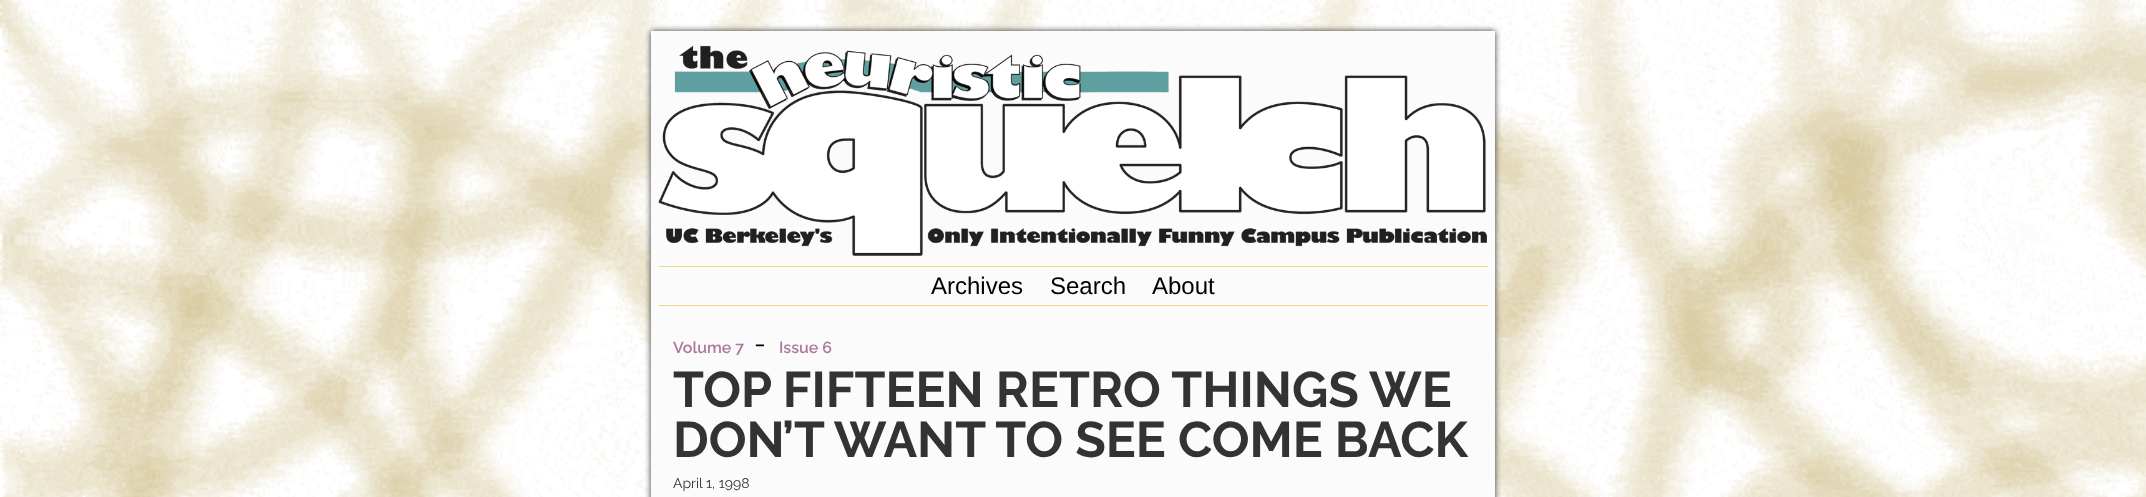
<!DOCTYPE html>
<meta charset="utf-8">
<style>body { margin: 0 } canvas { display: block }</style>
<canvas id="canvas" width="2146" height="497"></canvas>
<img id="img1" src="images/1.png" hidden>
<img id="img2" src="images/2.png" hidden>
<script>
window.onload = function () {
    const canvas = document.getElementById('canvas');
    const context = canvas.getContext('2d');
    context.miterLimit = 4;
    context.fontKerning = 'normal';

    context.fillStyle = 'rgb(255, 255, 255)';
    context.fillRect(0, 0, 2146, 497);
    context.drawImage(document.getElementById('img1'), 0, 0, 2146, 497);
    context.fillStyle = 'rgb(51, 51, 51)';
    context.filter = 'blur(3px)';
    context.beginPath();
    context.rect(651, 31, 844, 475);
    context.fill();
    context.filter = 'none';
    context.fillStyle = 'rgb(251, 251, 251)';
    context.fillRect(651, 31, 844, 466);
    context.fillStyle = 'rgb(235, 218, 129)';
    context.fillRect(659, 266, 829, 1);
    context.drawImage(document.getElementById('img2'), 658, 45, 829, 211);
    context.fillRect(659, 305, 829, 1);
    context.font = '24px Liberation Sans';
    context.fillStyle = 'rgb(0, 0, 0)';
    context.fillText('Archives', 931, 294);
    context.fillText('Search', 1050, 294);
    context.fillText('About', 1152, 294);
    context.font = '600 16px Raleway';
    context.fillStyle = 'rgb(172, 120, 158)';
    context.fillText('Volume 7', 673, 353);
    context.font = '28px Raleway';
    context.fillStyle = 'rgb(0, 0, 0)';
    context.fillText('-', 754, 353);
    context.font = '600 16px Raleway';
    context.fillStyle = 'rgb(172, 120, 158)';
    context.fillText('Issue 6', 779, 353);
    context.font = 'bold 50px Raleway';
    context.fillStyle = 'rgb(51, 51, 51)';
    context.fillText('TOP FIFTEEN RETRO THINGS WE', 673, 407);
    context.fillText('DON’T WANT TO SEE COME BACK', 673, 457);
    context.font = '14px Raleway';
    context.fillText('April 1, 1998', 673, 488);
};
</script>
